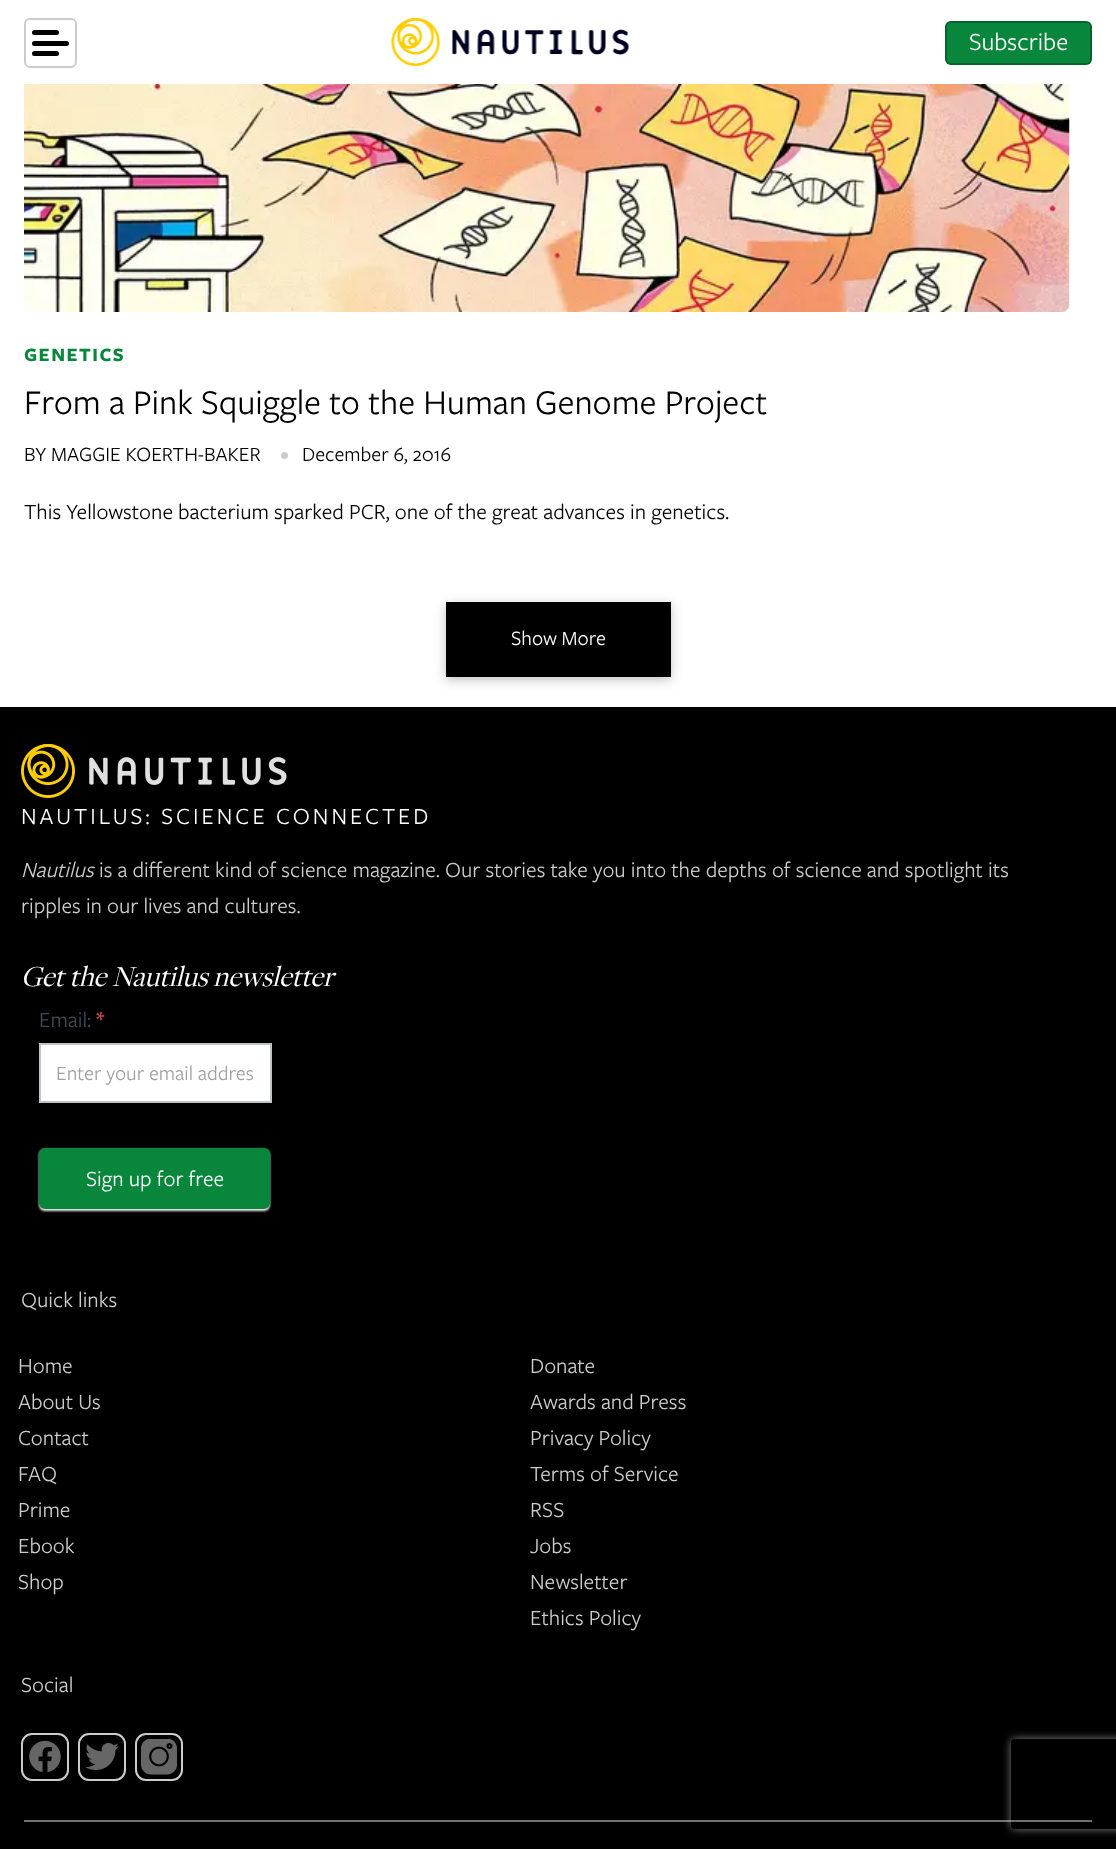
<!DOCTYPE html>
<meta charset="utf-8">
<style>body { margin: 0 } canvas { display: block }</style>
<canvas id="canvas" width="1116" height="1849"></canvas>
<img id="img1" src="images/1.png" hidden>
<img id="img2" src="images/2.png" hidden>
<img id="img3" src="images/3.png" hidden>
<img id="img4" src="images/4.png" hidden>
<img id="img5" src="images/5.png" hidden>
<img id="img6" src="images/6.png" hidden>
<script>
window.onload = function () {
    const canvas = document.getElementById('canvas');
    const context = canvas.getContext('2d');
    context.miterLimit = 4;
    context.fontKerning = 'normal';

    context.fillStyle = 'rgb(255, 255, 255)';
    context.fillRect(0, 0, 1116, 1849);
    context.beginPath();
    context.roundRect(25, 19, 51, 48, 5);
    context.strokeStyle = 'rgb(204, 204, 204)';
    context.lineWidth = 2;
    context.stroke();
    context.fillStyle = 'rgb(0, 0, 0)';
    context.beginPath();
    context.roundRect(32, 30, 27, 5, 2.5);
    context.fill();
    context.beginPath();
    context.roundRect(32, 41, 37, 5, 2.5);
    context.fill();
    context.beginPath();
    context.roundRect(32, 51, 27, 5, 2.5);
    context.fill();
    context.drawImage(document.getElementById('img1'), 391, 18, 238, 48);
    context.fillStyle = 'rgb(7, 134, 60)';
    context.beginPath();
    context.roundRect(945, 21, 147, 44, 6);
    context.fill();
    context.beginPath();
    context.roundRect(946, 22, 145, 42, 5);
    context.strokeStyle = 'rgba(0, 0, 0, 0.25)';
    context.stroke();
    context.drawImage(document.getElementById('img2'), 24, 84, 1046, 228);
    context.fillStyle = 'rgb(204, 204, 204)';
    context.beginPath();
    context.arc(284.5, 455.5, 3.5, 0, 2 * Math.PI);
    context.fill();
    context.fillStyle = 'rgba(0, 0, 0, 0.24)';
    context.filter = 'blur(6px)';
    context.beginPath();
    context.rect(446, 605, 225, 75);
    context.fill();
    context.filter = 'none';
    context.fillStyle = 'rgb(0, 0, 0)';
    context.fillRect(446, 602, 225, 75);
    context.fillRect(0, 707, 1116, 1142);
    context.drawImage(document.getElementById('img3'), 21, 744, 266, 54);
    context.fillStyle = 'rgb(255, 255, 255)';
    context.beginPath();
    context.rect(40, 1044, 231, 58);
    context.fill();
    context.strokeStyle = 'rgb(191, 195, 200)';
    context.stroke();
    context.fillStyle = 'rgb(238, 238, 238)';
    context.filter = 'blur(1px)';
    context.beginPath();
    context.roundRect(39, 1149, 231, 62, 6);
    context.fill();
    context.filter = 'none';
    context.fillStyle = 'rgb(7, 134, 60)';
    context.beginPath();
    context.roundRect(40, 1149, 229, 59, 5);
    context.fill();
    context.strokeStyle = 'rgb(7, 134, 60)';
    context.stroke();
    context.save();
    context.beginPath();
    context.moveTo(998, 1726);
    context.lineTo(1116, 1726);
    context.lineTo(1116, 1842);
    context.lineTo(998, 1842);
    context.closePath();
    context.moveTo(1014, 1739);
    context.lineTo(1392, 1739);
    context.bezierCurveTo(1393.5, 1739, 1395, 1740.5, 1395, 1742);
    context.lineTo(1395, 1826);
    context.bezierCurveTo(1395, 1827.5, 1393.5, 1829, 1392, 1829);
    context.lineTo(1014, 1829);
    context.bezierCurveTo(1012.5, 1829, 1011, 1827.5, 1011, 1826);
    context.lineTo(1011, 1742);
    context.bezierCurveTo(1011, 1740.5, 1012.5, 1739, 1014, 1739);
    context.closePath();
    context.clip('evenodd');
    context.fillStyle = 'rgb(128, 128, 128)';
    context.filter = 'blur(4px)';
    context.beginPath();
    context.roundRect(1011, 1739, 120, 90, 3);
    context.fill();
    context.filter = 'none';
    context.restore();
    context.beginPath();
    context.roundRect(22, 1734, 46, 46, 10);
    context.strokeStyle = 'rgb(204, 204, 204)';
    context.stroke();
    context.drawImage(document.getElementById('img4'), 29, 1740, 32, 33);
    context.beginPath();
    context.roundRect(79, 1734, 46, 46, 10);
    context.stroke();
    context.drawImage(document.getElementById('img5'), 85, 1743, 34, 27);
    context.beginPath();
    context.roundRect(136, 1734, 46, 46, 10);
    context.stroke();
    context.drawImage(document.getElementById('img6'), 141, 1739, 36, 36);
    context.fillStyle = 'rgba(224, 224, 224, 0.5)';
    context.fillRect(24, 1820, 1068, 2);
    context.font = '25.5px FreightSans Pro';
    context.fillStyle = 'rgb(255, 255, 255)';
    context.fillText('Subscribe', 969, 50);
    context.letterSpacing = '1.5px';
    context.font = 'bold 19.5px FreightSans Pro';
    context.fillStyle = 'rgb(7, 134, 60)';
    context.fillText('GENETICS', 24, 361);
    context.letterSpacing = '0px';
    context.font = '36px FreightSans Pro';
    context.fillStyle = 'rgb(0, 0, 0)';
    context.fillText('From a Pink Squiggle to the Human Genome Project', 24, 414);
    context.font = '21px FreightSans Pro';
    context.fillText('BY MAGGIE KOERTH-BAKER', 24, 461);
    context.fillText('December 6, 2016', 302, 461);
    context.font = '22.5px FreightSans Pro';
    context.fillText('This Yellowstone bacterium sparked PCR, one of the great advances in genetics.', 24, 519);
    context.font = '21px FreightSans Pro';
    context.fillStyle = 'rgb(255, 255, 255)';
    context.fillText('Show More', 511, 645);
    context.letterSpacing = '3px';
    context.font = '24px FreightSans Pro';
    context.fillText('NAUTILUS: SCIENCE CONNECTED', 21, 824);
    context.letterSpacing = '0px';
    context.font = 'italic 22.5px FreightSans Pro';
    context.fillStyle = 'rgb(204, 204, 204)';
    context.fillText('Nautilus', 21, 877);
    context.font = '22.5px FreightSans Pro';
    context.fillText('is a different kind of science magazine. Our stories take you into the depths of science and spotlight its', 99, 877);
    context.fillText('ripples in our lives and cultures.', 21, 913);
    context.font = 'italic 30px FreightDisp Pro';
    context.fillStyle = 'rgb(255, 255, 255)';
    context.fillText('Get the Nautilus newsletter', 21, 986);
    context.font = '22.5px FreightSans Pro';
    context.fillStyle = 'rgb(63, 75, 91)';
    context.fillText('Email:', 39, 1027);
    context.font = 'bold 22.5px "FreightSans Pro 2"';
    context.fillStyle = 'rgb(185, 74, 72)';
    context.fillText('*', 96, 1027);
    context.font = '21px FreightSans Pro';
    context.fillStyle = 'rgb(161, 161, 161)';
    context.fillText('Enter your email addres', 56, 1080);
    context.font = '22.5px FreightSans Pro';
    context.fillStyle = 'rgb(255, 255, 255)';
    context.fillText('Sign up for free', 86, 1186);
    context.fillStyle = 'rgb(204, 204, 204)';
    context.fillText('Quick links', 21, 1307);
    context.fillText('Home', 18, 1373);
    context.fillText('About Us', 18, 1409);
    context.fillText('Contact', 18, 1445);
    context.fillText('FAQ', 18, 1481);
    context.fillText('Prime', 18, 1517);
    context.fillText('Ebook', 18, 1553);
    context.fillText('Shop', 18, 1589);
    context.fillText('Donate', 530, 1373);
    context.fillText('Awards and Press', 530, 1409);
    context.fillText('Privacy Policy', 530, 1445);
    context.fillText('Terms of Service', 530, 1481);
    context.fillText('RSS', 530, 1517);
    context.fillText('Jobs', 530, 1553);
    context.fillText('Newsletter', 530, 1589);
    context.fillText('Ethics Policy', 530, 1625);
    context.fillText('Social', 21, 1692);
};
</script>
